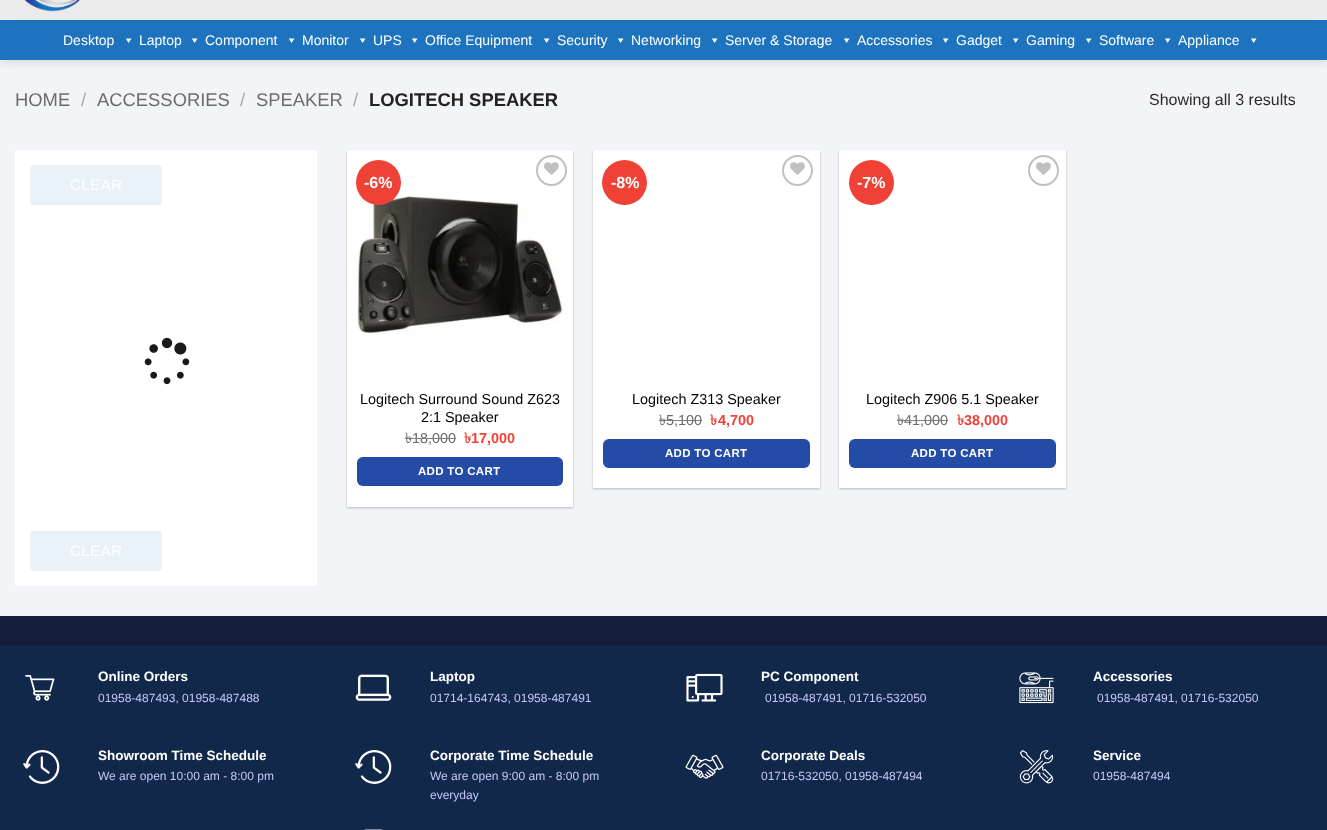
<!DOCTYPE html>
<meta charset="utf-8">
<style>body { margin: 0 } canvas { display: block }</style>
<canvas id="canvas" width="1327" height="830"></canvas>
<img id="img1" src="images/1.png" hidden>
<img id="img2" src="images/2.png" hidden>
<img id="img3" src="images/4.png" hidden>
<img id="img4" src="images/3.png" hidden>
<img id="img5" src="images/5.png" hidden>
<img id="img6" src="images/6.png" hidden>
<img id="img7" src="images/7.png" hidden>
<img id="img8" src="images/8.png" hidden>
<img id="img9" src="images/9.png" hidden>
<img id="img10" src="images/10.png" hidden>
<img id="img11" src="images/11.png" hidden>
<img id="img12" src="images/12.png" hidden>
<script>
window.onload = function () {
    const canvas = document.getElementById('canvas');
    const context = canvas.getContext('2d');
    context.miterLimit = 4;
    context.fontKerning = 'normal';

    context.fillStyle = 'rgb(242, 244, 248)';
    context.fillRect(0, 0, 1327, 830);
    context.fillStyle = 'rgba(0, 0, 0, 0.15)';
    context.filter = 'blur(5px)';
    context.beginPath();
    context.rect(1, -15, 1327, 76);
    context.fill();
    context.filter = 'none';
    context.fillStyle = 'rgb(235, 235, 235)';
    context.fillRect(0, 0, 1327, 20);
    context.drawImage(document.getElementById('img1'), 24, 0, 56, 12);
    context.fillStyle = 'rgb(30, 115, 190)';
    context.fillRect(0, 20, 1327, 40);
    context.fillStyle = 'rgb(32, 108, 175)';
    context.fillRect(15, 20, 1297, 1);
    context.fillStyle = 'rgb(255, 255, 255)';
    context.beginPath();
    context.moveTo(131.5, 38.5);
    context.lineTo(128.5, 43);
    context.lineTo(126, 38.5);
    context.closePath();
    context.fill();
    context.beginPath();
    context.moveTo(197.5, 38.5);
    context.lineTo(194.5, 43);
    context.lineTo(192, 38.5);
    context.closePath();
    context.fill();
    context.beginPath();
    context.moveTo(294.5, 38.5);
    context.lineTo(291.5, 43);
    context.lineTo(289, 38.5);
    context.closePath();
    context.fill();
    context.beginPath();
    context.moveTo(365.5, 38.5);
    context.lineTo(362.5, 43);
    context.lineTo(360, 38.5);
    context.closePath();
    context.fill();
    context.beginPath();
    context.moveTo(417.5, 38.5);
    context.lineTo(414.5, 43);
    context.lineTo(412, 38.5);
    context.closePath();
    context.fill();
    context.beginPath();
    context.moveTo(549.5, 38.5);
    context.lineTo(546.5, 43);
    context.lineTo(544, 38.5);
    context.closePath();
    context.fill();
    context.beginPath();
    context.moveTo(623.5, 38.5);
    context.lineTo(620.5, 43);
    context.lineTo(618, 38.5);
    context.closePath();
    context.fill();
    context.beginPath();
    context.moveTo(717.5, 38.5);
    context.lineTo(714.5, 43);
    context.lineTo(712, 38.5);
    context.closePath();
    context.fill();
    context.beginPath();
    context.moveTo(849.5, 38.5);
    context.lineTo(846.5, 43);
    context.lineTo(844, 38.5);
    context.closePath();
    context.fill();
    context.beginPath();
    context.moveTo(948.5, 38.5);
    context.lineTo(945.5, 43);
    context.lineTo(943, 38.5);
    context.closePath();
    context.fill();
    context.beginPath();
    context.moveTo(1018.5, 38.5);
    context.lineTo(1015.5, 43);
    context.lineTo(1013, 38.5);
    context.closePath();
    context.fill();
    context.beginPath();
    context.moveTo(1091.5, 38.5);
    context.lineTo(1088.5, 43);
    context.lineTo(1086, 38.5);
    context.closePath();
    context.fill();
    context.beginPath();
    context.moveTo(1170.5, 38.5);
    context.lineTo(1167.5, 43);
    context.lineTo(1165, 38.5);
    context.closePath();
    context.fill();
    context.beginPath();
    context.moveTo(1256.5, 38.5);
    context.lineTo(1253.5, 43);
    context.lineTo(1251, 38.5);
    context.closePath();
    context.fill();
    context.fillStyle = 'rgb(46, 40, 40)';
    context.filter = 'blur(0.5px)';
    context.beginPath();
    context.rect(15, 150, 302, 436);
    context.fill();
    context.filter = 'none';
    context.fillStyle = 'rgb(255, 255, 255)';
    context.fillRect(15, 150, 302, 436);
    context.fillStyle = 'rgb(233, 241, 249)';
    context.beginPath();
    context.roundRect(30, 165, 132, 40, 4);
    context.fill();
    context.drawImage(document.getElementById('img2'), 144, 337, 46, 48);
    context.beginPath();
    context.roundRect(30, 531, 132, 40, 4);
    context.fill();
    context.fillStyle = 'rgba(0, 0, 0, 0.24)';
    context.filter = 'blur(1px)';
    context.beginPath();
    context.rect(347, 151, 226, 357);
    context.fill();
    context.filter = 'none';
    context.fillStyle = 'rgb(255, 255, 255)';
    context.fillRect(347, 150, 226, 357);
    context.drawImage(document.getElementById('img3'), 357, 193, 206, 142);
    context.fillStyle = 'rgb(239, 65, 54)';
    context.beginPath();
    context.arc(378.5, 182.5, 22.5, 0, 2 * Math.PI);
    context.fill();
    context.beginPath();
    context.arc(551.5, 170.5, 14.5, 0, 2 * Math.PI);
    context.strokeStyle = 'rgb(192, 192, 192)';
    context.lineWidth = 2;
    context.stroke();
    context.drawImage(document.getElementById('img4'), 544, 162, 15, 13);
    context.fillStyle = 'rgb(36, 75, 165)';
    context.beginPath();
    context.roundRect(357, 457, 206, 29, 6);
    context.fill();
    context.strokeStyle = 'rgba(0, 0, 0, 0.05)';
    context.lineWidth = 1;
    context.strokeRect(357.5, 457.5, 205, 28);
    context.fillStyle = 'rgba(0, 0, 0, 0.24)';
    context.filter = 'blur(1px)';
    context.beginPath();
    context.rect(593, 151, 227, 338);
    context.fill();
    context.filter = 'none';
    context.fillStyle = 'rgb(255, 255, 255)';
    context.fillRect(593, 150, 227, 338);
    context.fillStyle = 'rgb(239, 65, 54)';
    context.beginPath();
    context.arc(624.5, 182.5, 22.5, 0, 2 * Math.PI);
    context.fill();
    context.beginPath();
    context.arc(797.5, 170.5, 14.5, 0, 2 * Math.PI);
    context.strokeStyle = 'rgb(192, 192, 192)';
    context.lineWidth = 2;
    context.stroke();
    context.drawImage(document.getElementById('img4'), 790, 162, 15, 13);
    context.fillStyle = 'rgb(36, 75, 165)';
    context.beginPath();
    context.roundRect(603, 439, 207, 29, 6);
    context.fill();
    context.strokeStyle = 'rgba(0, 0, 0, 0.05)';
    context.lineWidth = 1;
    context.strokeRect(603.5, 439.5, 206, 28);
    context.fillStyle = 'rgba(0, 0, 0, 0.24)';
    context.filter = 'blur(1px)';
    context.beginPath();
    context.rect(839, 151, 227, 338);
    context.fill();
    context.filter = 'none';
    context.fillStyle = 'rgb(255, 255, 255)';
    context.fillRect(839, 150, 227, 338);
    context.fillStyle = 'rgb(239, 65, 54)';
    context.beginPath();
    context.arc(871.5, 182.5, 22.5, 0, 2 * Math.PI);
    context.fill();
    context.beginPath();
    context.arc(1043.5, 170.5, 14.5, 0, 2 * Math.PI);
    context.strokeStyle = 'rgb(192, 192, 192)';
    context.lineWidth = 2;
    context.stroke();
    context.drawImage(document.getElementById('img4'), 1036, 162, 15, 13);
    context.fillStyle = 'rgb(36, 75, 165)';
    context.beginPath();
    context.roundRect(849, 439, 207, 29, 6);
    context.fill();
    context.strokeStyle = 'rgba(0, 0, 0, 0.05)';
    context.lineWidth = 1;
    context.strokeRect(849.5, 439.5, 206, 28);
    context.fillStyle = 'rgb(21, 30, 58)';
    context.fillRect(0, 616, 1327, 30);
    context.fillStyle = 'rgb(17, 40, 75)';
    context.fillRect(0, 646, 1327, 184);
    context.drawImage(document.getElementById('img5'), 25, 675, 30, 26);
    context.drawImage(document.getElementById('img6'), 355, 674, 37, 27);
    context.drawImage(document.getElementById('img7'), 686, 673, 37, 29);
    context.drawImage(document.getElementById('img8'), 1019, 672, 35, 32);
    context.drawImage(document.getElementById('img9'), 23, 750, 37, 34);
    context.drawImage(document.getElementById('img9'), 355, 750, 37, 34);
    context.drawImage(document.getElementById('img10'), 685, 754, 39, 25);
    context.drawImage(document.getElementById('img11'), 1019, 750, 35, 34);
    context.drawImage(document.getElementById('img12'), 364, 829, 19, 1);
    context.font = '14px Liberation Sans';
    context.fillStyle = 'rgb(255, 255, 255)';
    context.fillText('Desktop', 63, 45);
    context.fillText('Laptop', 139, 45);
    context.fillText('Component', 205, 45);
    context.fillText('Monitor', 302, 45);
    context.fillText('UPS', 373, 45);
    context.fillText('Office Equipment', 425, 45);
    context.fillText('Security', 557, 45);
    context.fillText('Networking', 631, 45);
    context.fillText('Server & Storage', 725, 45);
    context.fillText('Accessories', 857, 45);
    context.fillText('Gadget', 956, 45);
    context.fillText('Gaming', 1026, 45);
    context.fillText('Software', 1099, 45);
    context.fillText('Appliance', 1178, 45);
    context.font = '18.4px Liberation Sans';
    context.fillStyle = 'rgb(108, 108, 109)';
    context.fillText('HOME', 15, 106);
    context.fillStyle = 'rgb(169, 170, 173)';
    context.fillText('/', 81, 106);
    context.fillStyle = 'rgb(108, 108, 109)';
    context.fillText('ACCESSORIES', 97, 106);
    context.fillStyle = 'rgb(169, 170, 173)';
    context.fillText('/', 240, 106);
    context.fillStyle = 'rgb(108, 108, 109)';
    context.fillText('SPEAKER', 256, 106);
    context.fillStyle = 'rgb(169, 170, 173)';
    context.fillText('/', 353, 106);
    context.font = 'bold 18.4px Liberation Sans';
    context.fillStyle = 'rgb(34, 34, 34)';
    context.fillText('LOGITECH SPEAKER', 369, 106);
    context.font = '16px Liberation Sans';
    context.fillStyle = 'rgb(46, 40, 40)';
    context.fillText('Showing all 3 results', 1149, 105);
    context.letterSpacing = '0.5px';
    context.font = '15px Liberation Sans';
    context.fillStyle = 'rgb(255, 255, 255)';
    context.fillText('CLEAR', 70, 190);
    context.fillText('CLEAR', 70, 556);
    context.letterSpacing = '0px';
    context.font = 'bold 16px Liberation Sans';
    context.fillText('-6%', 364, 188);
    context.font = '14.4px Liberation Sans';
    context.fillStyle = 'rgb(0, 0, 0)';
    context.fillText('Logitech Surround Sound Z623', 360, 404);
    context.fillText('2:1 Speaker', 421, 422);
    context.font = '14.4px Lohit Bengali';
    context.fillStyle = 'rgb(108, 108, 109)';
    context.fillText('৳', 405, 443);
    context.font = '14.4px Liberation Sans';
    context.fillText('18,000', 412, 443);
    context.fillStyle = 'rgb(130, 126, 126)';
    context.fillRect(405, 438, 7, 1);
    context.fillRect(412, 438, 44, 1);
    context.font = 'bold 14.4px Lohit Bengali';
    context.fillStyle = 'rgb(239, 65, 54)';
    context.fillText('৳', 464, 443);
    context.font = 'bold 14.4px Liberation Sans';
    context.fillText('17,000', 471, 443);
    context.letterSpacing = '0.3px';
    context.font = 'bold 11.5px Liberation Sans';
    context.fillStyle = 'rgb(255, 255, 255)';
    context.fillText('ADD TO CART', 418, 475);
    context.letterSpacing = '0px';
    context.font = 'bold 16px Liberation Sans';
    context.fillText('-8%', 611, 188);
    context.font = '14.4px Liberation Sans';
    context.fillStyle = 'rgb(0, 0, 0)';
    context.fillText('Logitech Z313 Speaker', 632, 404);
    context.font = '14.4px Lohit Bengali';
    context.fillStyle = 'rgb(108, 108, 109)';
    context.fillText('৳', 659, 425);
    context.font = '14.4px Liberation Sans';
    context.fillText('5,100', 666, 425);
    context.fillStyle = 'rgb(130, 126, 126)';
    context.fillRect(659, 420, 7, 1);
    context.fillRect(666, 420, 36, 1);
    context.font = 'bold 14.4px Lohit Bengali';
    context.fillStyle = 'rgb(239, 65, 54)';
    context.fillText('৳', 710, 425);
    context.font = 'bold 14.4px Liberation Sans';
    context.fillText('4,700', 718, 425);
    context.letterSpacing = '0.3px';
    context.font = 'bold 11.5px Liberation Sans';
    context.fillStyle = 'rgb(255, 255, 255)';
    context.fillText('ADD TO CART', 665, 457);
    context.letterSpacing = '0px';
    context.font = 'bold 16px Liberation Sans';
    context.fillText('-7%', 857, 188);
    context.font = '14.4px Liberation Sans';
    context.fillStyle = 'rgb(0, 0, 0)';
    context.fillText('Logitech Z906 5.1 Speaker', 866, 404);
    context.font = '14.4px Lohit Bengali';
    context.fillStyle = 'rgb(108, 108, 109)';
    context.fillText('৳', 897, 425);
    context.font = '14.4px Liberation Sans';
    context.fillText('41,000', 904, 425);
    context.fillStyle = 'rgb(130, 126, 126)';
    context.fillRect(897, 420, 7, 1);
    context.fillRect(904, 420, 44, 1);
    context.font = 'bold 14.4px Lohit Bengali';
    context.fillStyle = 'rgb(239, 65, 54)';
    context.fillText('৳', 957, 425);
    context.font = 'bold 14.4px Liberation Sans';
    context.fillText('38,000', 964, 425);
    context.letterSpacing = '0.3px';
    context.font = 'bold 11.5px Liberation Sans';
    context.fillStyle = 'rgb(255, 255, 255)';
    context.fillText('ADD TO CART', 911, 457);
    context.letterSpacing = '0px';
    context.font = 'bold 13.5px Liberation Sans';
    context.fillText('Online Orders', 98, 681);
    context.font = '12px Liberation Sans';
    context.fillStyle = 'rgb(198, 198, 247)';
    context.fillText('01958-487493, 01958-487488', 98, 702);
    context.font = 'bold 13.5px Liberation Sans';
    context.fillStyle = 'rgb(255, 255, 255)';
    context.fillText('Laptop', 430, 681);
    context.font = '12px Liberation Sans';
    context.fillStyle = 'rgb(198, 198, 247)';
    context.fillText('01714-164743, 01958-487491', 430, 702);
    context.font = 'bold 13.5px Liberation Sans';
    context.fillStyle = 'rgb(255, 255, 255)';
    context.fillText('PC Component', 761, 681);
    context.font = '12px Liberation Sans';
    context.fillStyle = 'rgb(198, 198, 247)';
    context.fillText('01958-487491, 01716-532050', 765, 702);
    context.font = 'bold 13.5px Liberation Sans';
    context.fillStyle = 'rgb(255, 255, 255)';
    context.fillText('Accessories', 1093, 681);
    context.font = '12px Liberation Sans';
    context.fillStyle = 'rgb(198, 198, 247)';
    context.fillText('01958-487491, 01716-532050', 1097, 702);
    context.font = 'bold 13.5px Liberation Sans';
    context.fillStyle = 'rgb(255, 255, 255)';
    context.fillText('Showroom Time Schedule', 98, 760);
    context.font = '12px Liberation Sans';
    context.fillStyle = 'rgb(198, 198, 247)';
    context.fillText('We are open 10:00 am - 8:00 pm', 98, 780);
    context.font = 'bold 13.5px Liberation Sans';
    context.fillStyle = 'rgb(255, 255, 255)';
    context.fillText('Corporate Time Schedule', 430, 760);
    context.font = '12px Liberation Sans';
    context.fillStyle = 'rgb(198, 198, 247)';
    context.fillText('We are open 9:00 am - 8:00 pm', 430, 780);
    context.fillText('everyday', 430, 799);
    context.font = 'bold 13.5px Liberation Sans';
    context.fillStyle = 'rgb(255, 255, 255)';
    context.fillText('Corporate Deals', 761, 760);
    context.font = '12px Liberation Sans';
    context.fillStyle = 'rgb(198, 198, 247)';
    context.fillText('01716-532050, 01958-487494', 761, 780);
    context.font = 'bold 13.5px Liberation Sans';
    context.fillStyle = 'rgb(255, 255, 255)';
    context.fillText('Service', 1093, 760);
    context.font = '12px Liberation Sans';
    context.fillStyle = 'rgb(198, 198, 247)';
    context.fillText('01958-487494', 1093, 780);
};
</script>
